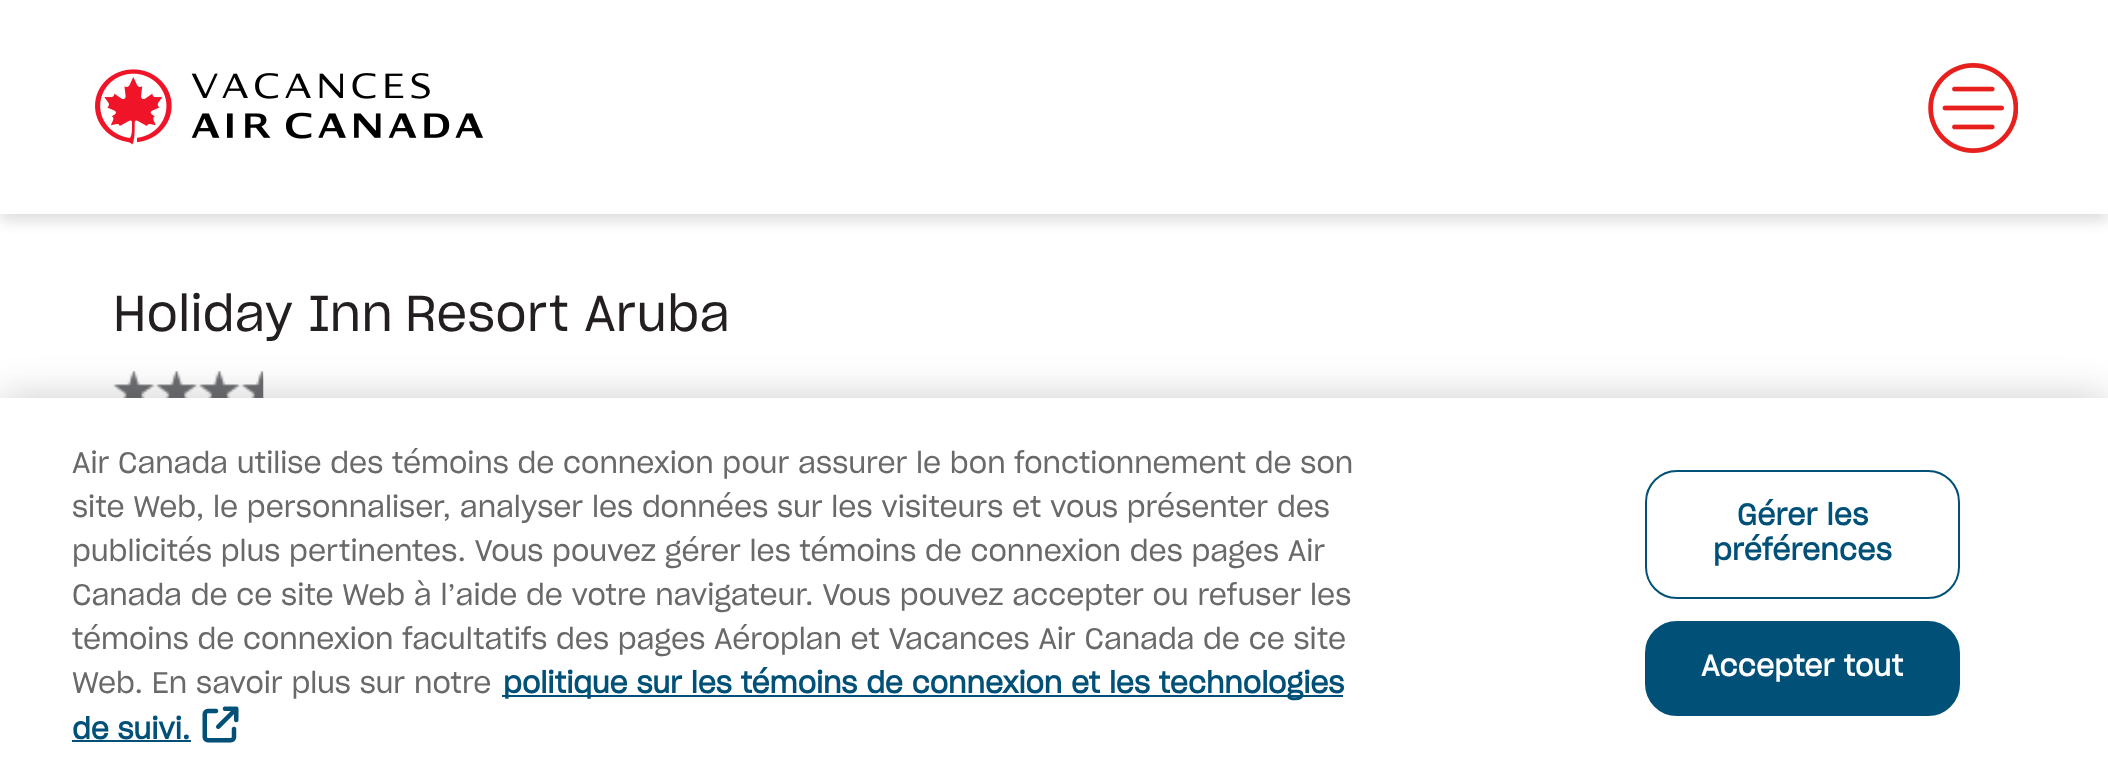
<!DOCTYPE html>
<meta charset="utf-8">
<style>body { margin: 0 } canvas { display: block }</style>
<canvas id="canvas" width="2108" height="775"></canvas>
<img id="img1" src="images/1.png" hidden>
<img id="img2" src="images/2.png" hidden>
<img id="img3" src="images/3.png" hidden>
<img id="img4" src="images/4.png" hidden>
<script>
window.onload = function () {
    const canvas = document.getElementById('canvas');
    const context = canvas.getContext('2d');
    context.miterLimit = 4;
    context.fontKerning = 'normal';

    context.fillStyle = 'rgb(255, 255, 255)';
    context.fillRect(0, 0, 2108, 775);
    context.fillStyle = 'rgba(35, 31, 32, 0.15)';
    context.filter = 'blur(7px)';
    context.beginPath();
    context.rect(0, 7, 2108, 214);
    context.fill();
    context.filter = 'none';
    context.fillStyle = 'rgb(255, 255, 255)';
    context.fillRect(0, 0, 2108, 214);
    context.drawImage(document.getElementById('img1'), 95, 69, 388, 76);
    context.drawImage(document.getElementById('img2'), 1928, 63, 90, 90);
    context.drawImage(document.getElementById('img3'), 112, 371, 152, 27);
    context.fillStyle = 'rgba(0, 0, 0, 0.2)';
    context.filter = 'blur(20px)';
    context.beginPath();
    context.rect(0, 398, 2108, 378);
    context.fill();
    context.filter = 'none';
    context.fillStyle = 'rgb(255, 255, 255)';
    context.fillRect(0, 398, 2108, 377);
    context.fillStyle = 'rgb(0, 80, 120)';
    context.fillRect(502, 695, 841, 2);
    context.fillRect(72, 740, 119, 2);
    context.drawImage(document.getElementById('img4'), 202, 706, 37, 37);
    context.beginPath();
    context.roundRect(1646, 471, 313, 127, 31);
    context.strokeStyle = 'rgb(0, 80, 120)';
    context.lineWidth = 2;
    context.stroke();
    context.beginPath();
    context.roundRect(1646, 622, 313, 93, 31);
    context.fill();
    context.stroke();
    context.letterSpacing = '0.45px';
    context.font = '49.5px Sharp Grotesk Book';
    context.fillStyle = 'rgb(35, 31, 32)';
    context.fillText('Holiday Inn', 113, 331);
    context.fillText('Resort Aruba', 405, 331);
    context.letterSpacing = '0px';
    context.font = '29.25px Sharp Grotesk Book';
    context.fillStyle = 'rgb(105, 105, 105)';
    context.fillText('Air Canada utilise des témoins de connexion pour assurer le bon fonctionnement de son', 72, 473);
    context.fillText('site Web, le personnaliser, analyser les données sur les visiteurs et vous présenter des', 72, 517);
    context.fillText('publicités plus pertinentes. Vous pouvez gérer les témoins de connexion des pages Air', 72, 561);
    context.fillText('Canada de ce site Web à l’aide de votre navigateur. Vous pouvez accepter ou refuser les', 72, 605);
    context.fillText('témoins de connexion facultatifs des pages Aéroplan et Vacances Air Canada de ce site', 72, 649);
    context.font = 'bold 29.25px Sharp Grotesk Book';
    context.fillStyle = 'rgb(0, 80, 120)';
    context.fillText('politique sur les témoins de connexion et les technologies', 503, 693);
    context.fillText('de suivi.', 72, 739);
    context.font = '29.25px Sharp Grotesk Book';
    context.fillStyle = 'rgb(105, 105, 105)';
    context.fillText('Web. En savoir plus sur notre', 72, 693);
    context.letterSpacing = '0.25px';
    context.font = 'bold 29.25px Sharp Grotesk Book';
    context.fillStyle = 'rgb(0, 80, 120)';
    context.fillText('Gérer les', 1737, 525);
    context.fillText('préférences', 1713, 560);
    context.fillStyle = 'rgb(255, 255, 255)';
    context.fillText('Accepter tout', 1701, 676);
};
</script>
